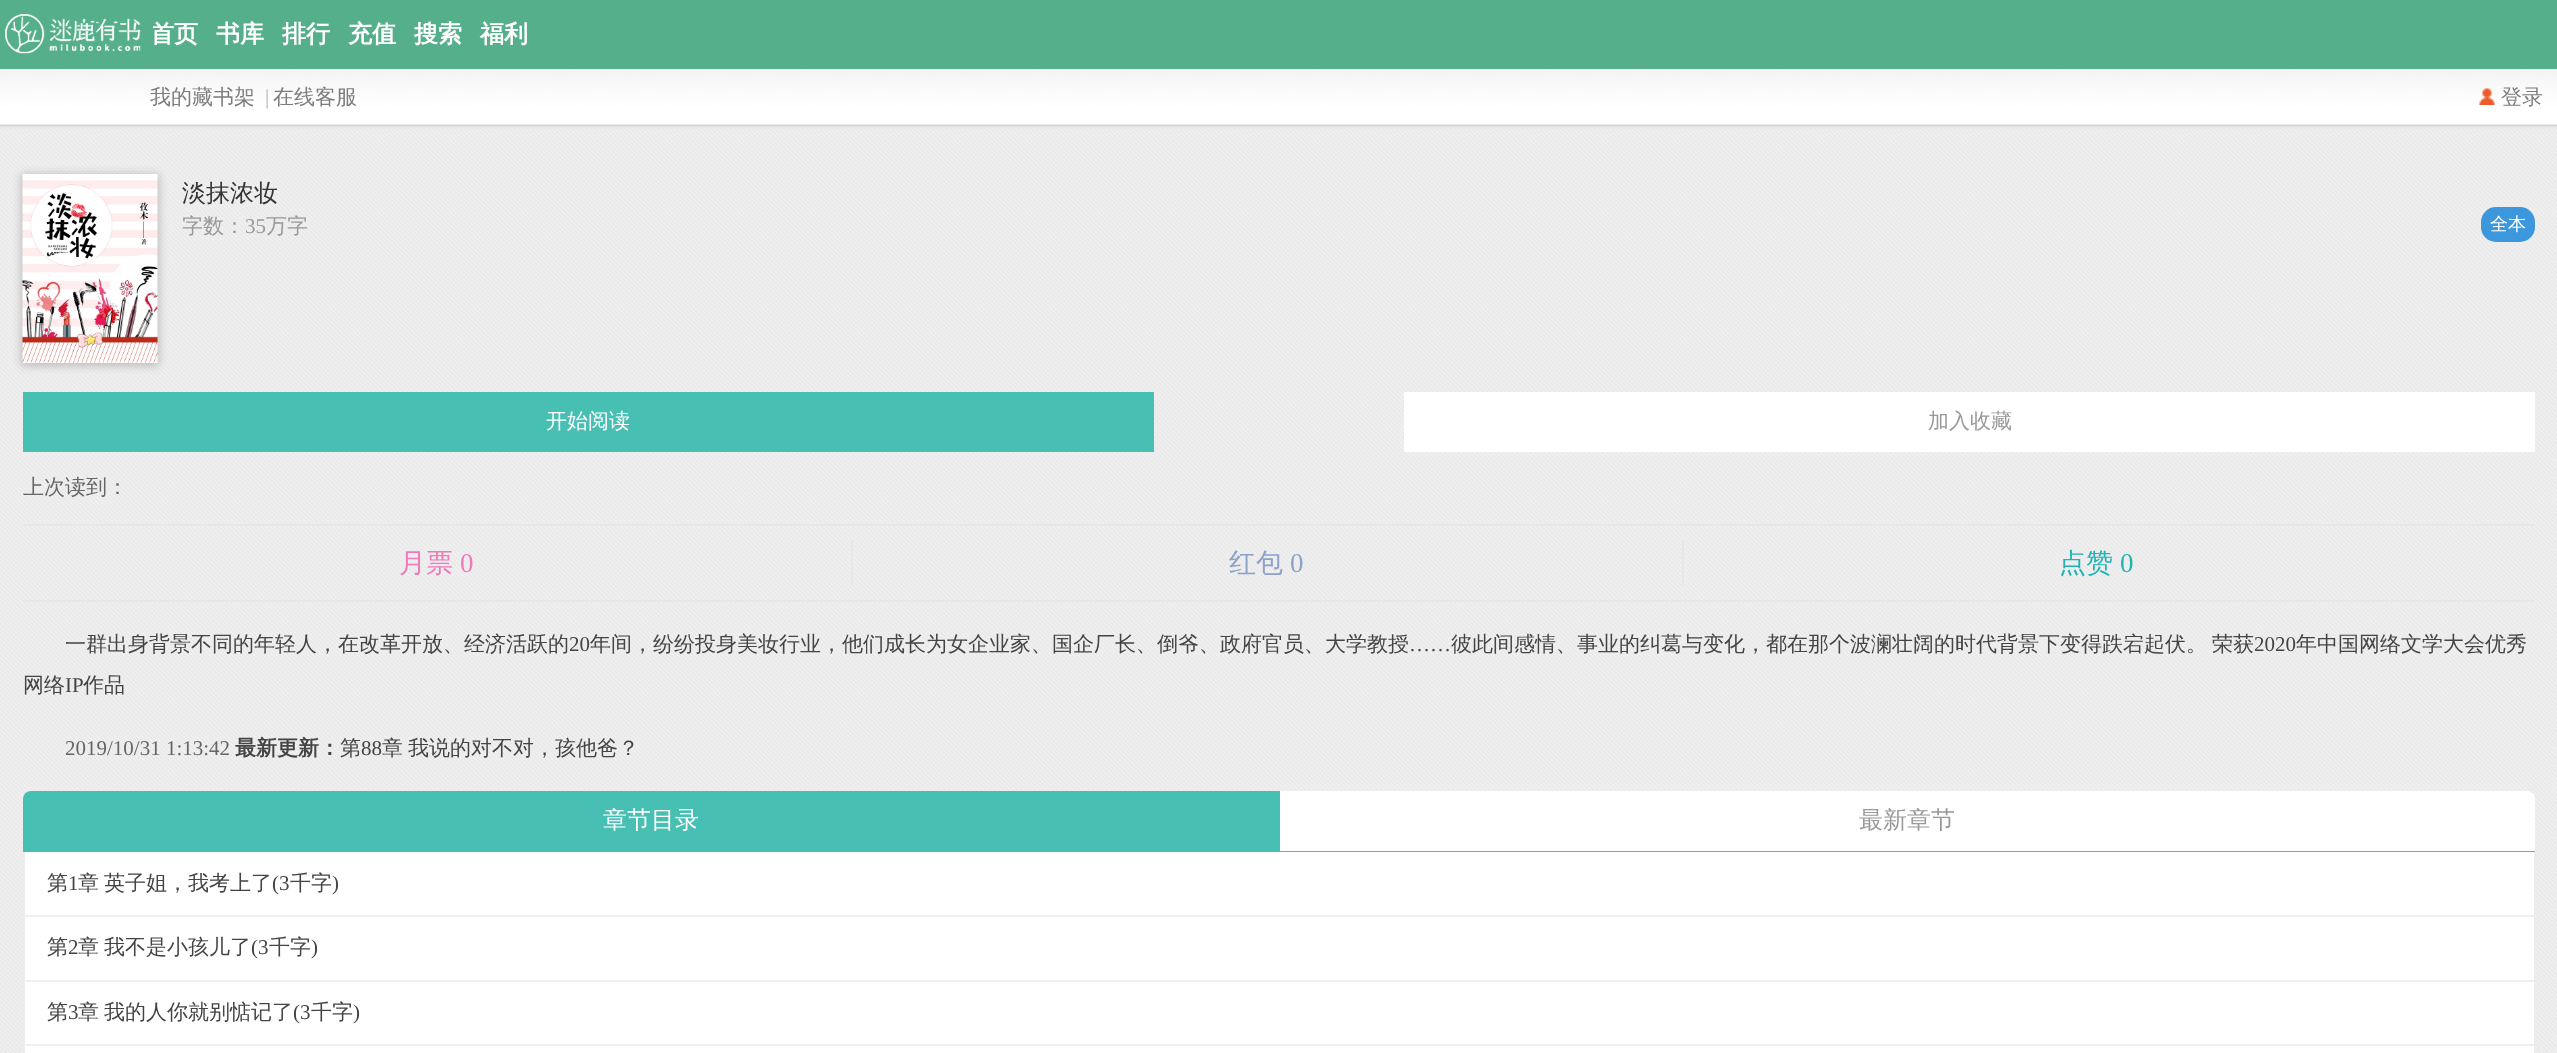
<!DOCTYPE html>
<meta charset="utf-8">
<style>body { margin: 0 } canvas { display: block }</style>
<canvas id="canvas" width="2557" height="1053"></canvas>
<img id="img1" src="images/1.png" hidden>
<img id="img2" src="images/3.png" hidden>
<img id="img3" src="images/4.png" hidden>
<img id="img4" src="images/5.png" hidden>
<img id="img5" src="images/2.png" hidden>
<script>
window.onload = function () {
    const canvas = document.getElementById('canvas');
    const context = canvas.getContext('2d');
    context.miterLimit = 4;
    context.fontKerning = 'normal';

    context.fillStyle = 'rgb(255, 255, 255)';
    context.fillRect(0, 0, 2557, 1053);
    context.drawImage(document.getElementById('img1'), 0, 128, 2557, 925);
    context.fillStyle = 'rgb(86, 175, 139)';
    context.fillRect(0, 0, 2557, 69);
    context.drawImage(document.getElementById('img2'), 0, 69, 2557, 60);
    context.drawImage(document.getElementById('img3'), 2479, 88, 16, 17);
    context.fillStyle = 'rgb(189, 189, 189)';
    context.filter = 'blur(4.5px)';
    context.beginPath();
    context.rect(21, 174, 138, 192);
    context.fill();
    context.filter = 'none';
    context.drawImage(document.getElementById('img4'), 22, 174, 136, 189);
    context.fillStyle = 'rgb(60, 151, 221)';
    context.beginPath();
    context.roundRect(2481, 207, 54, 35, 15);
    context.fill();
    context.fillStyle = 'rgb(71, 191, 178)';
    context.fillRect(23, 392, 1131, 60);
    context.fillStyle = 'rgb(255, 255, 255)';
    context.fillRect(1404, 392, 1131, 60);
    context.fillStyle = 'rgb(231, 231, 231)';
    context.fillRect(23, 524, 2512, 2);
    context.fillRect(23, 600, 2512, 2);
    context.fillRect(851, 540, 2, 45);
    context.fillRect(1682, 540, 2, 45);
    context.fillStyle = 'rgb(71, 191, 178)';
    context.fillRect(23, 851, 2512, 1);
    context.beginPath();
    context.roundRect(23, 791, 1257, 60, [8, 0, 0, 0]);
    context.fill();
    context.fillStyle = 'rgb(255, 255, 255)';
    context.beginPath();
    context.roundRect(1280, 791, 1255, 60, [0, 8, 0, 0]);
    context.fill();
    context.fillRect(25, 852, 2509, 201);
    context.fillStyle = 'rgb(236, 236, 236)';
    context.fillRect(2534, 852, 1, 201);
    context.fillRect(23, 852, 2, 201);
    context.fillStyle = 'rgb(239, 239, 239)';
    context.fillRect(24, 915, 2510, 2);
    context.fillRect(24, 980, 2510, 2);
    context.fillRect(24, 1044, 2510, 2);
    context.font = 'bold 24px WenQuanYi Zen Hei';
    context.fillStyle = 'rgb(255, 255, 255)';
    context.fillText('首页', 150, 42);
    context.drawImage(document.getElementById('img5'), 5, 14, 148, 40);
    context.fillText('书库', 216, 42);
    context.fillText('排行', 282, 42);
    context.fillText('充值', 348, 42);
    context.fillText('搜索', 414, 42);
    context.fillText('福利', 480, 42);
    context.font = '500 21px WenQuanYi Zen Hei';
    context.fillStyle = 'rgb(124, 124, 124)';
    context.fillText('我的藏书架', 150, 104);
    context.font = '21px Liberation Serif';
    context.fillStyle = 'rgb(179, 179, 179)';
    context.fillText('|', 265, 104);
    context.font = '500 21px WenQuanYi Zen Hei';
    context.fillStyle = 'rgb(124, 124, 124)';
    context.fillText('在线客服', 273, 104);
    context.fillText('登录', 2501, 104);
    context.font = '500 24px WenQuanYi Zen Hei';
    context.fillStyle = 'rgb(51, 51, 51)';
    context.fillText('淡抹浓妆', 182, 201);
    context.font = '500 21px WenQuanYi Zen Hei';
    context.fillStyle = 'rgb(153, 153, 153)';
    context.fillText('字数：', 182, 233);
    context.font = '21px Liberation Serif';
    context.fillText('35', 245, 233);
    context.font = '500 21px WenQuanYi Zen Hei';
    context.fillText('万字', 266, 233);
    context.font = '500 18px WenQuanYi Zen Hei';
    context.fillStyle = 'rgb(255, 255, 255)';
    context.fillText('全本', 2490, 230);
    context.font = '500 21px WenQuanYi Zen Hei';
    context.fillText('开始阅读', 546, 428);
    context.fillStyle = 'rgb(153, 153, 153)';
    context.fillText('加入收藏', 1928, 428);
    context.fillStyle = 'rgb(102, 102, 102)';
    context.fillText('上次读到：', 23, 494);
    context.font = '500 27px WenQuanYi Zen Hei';
    context.fillStyle = 'rgb(240, 121, 185)';
    context.fillText('月票', 399, 572);
    context.font = '27px Liberation Serif';
    context.fillText('0', 460, 572);
    context.font = '500 27px WenQuanYi Zen Hei';
    context.fillStyle = 'rgb(140, 162, 203)';
    context.fillText('红包', 1229, 572);
    context.font = '27px Liberation Serif';
    context.fillText('0', 1290, 572);
    context.font = '500 27px WenQuanYi Zen Hei';
    context.fillStyle = 'rgb(31, 179, 182)';
    context.fillText('点赞', 2059, 572);
    context.font = '27px Liberation Serif';
    context.fillText('0', 2120, 572);
    context.font = '500 21px WenQuanYi Zen Hei';
    context.fillStyle = 'rgb(68, 68, 68)';
    context.fillText('一群出身背景不同的年轻人，在改革开放、经济活跃的', 65, 651);
    context.font = '21px Liberation Serif';
    context.fillText('20', 569, 651);
    context.font = '500 21px WenQuanYi Zen Hei';
    context.fillText('年间，纷纷投身美妆行业，他们成长为女企业家、国企厂长、倒爷、政府官员、大学教授', 590, 651);
    context.font = '21px Liberation Serif';
    context.fillText('……', 1409, 651);
    context.font = '500 21px WenQuanYi Zen Hei';
    context.fillText('彼此间感情、事业的纠葛与变化，都在那个波澜壮阔的时代背景下变得跌宕起伏。', 1451, 651);
    context.fillText('荣获', 2212, 651);
    context.font = '21px Liberation Serif';
    context.fillText('2020', 2254, 651);
    context.font = '500 21px WenQuanYi Zen Hei';
    context.fillText('年中国网络文学大会优秀', 2296, 651);
    context.fillText('网络', 23, 692);
    context.font = '21px Liberation Serif';
    context.fillText('IP', 65, 692);
    context.font = '500 21px WenQuanYi Zen Hei';
    context.fillText('作品', 83, 692);
    context.font = '21px Liberation Serif';
    context.fillStyle = 'rgb(102, 102, 102)';
    context.fillText('2019/10/31 1:13:42', 65, 755);
    context.font = 'bold 21px WenQuanYi Zen Hei';
    context.fillStyle = 'rgb(68, 68, 68)';
    context.fillText('最新更新：', 235, 755);
    context.font = '500 21px WenQuanYi Zen Hei';
    context.fillText('第', 340, 755);
    context.font = '21px Liberation Serif';
    context.fillText('88', 361, 755);
    context.font = '500 21px WenQuanYi Zen Hei';
    context.fillText('章', 382, 755);
    context.fillText('我说的对不对，孩他爸？', 408, 755);
    context.font = '500 24px WenQuanYi Zen Hei';
    context.fillStyle = 'rgb(255, 255, 255)';
    context.fillText('章节目录', 603, 828);
    context.fillStyle = 'rgb(153, 153, 153)';
    context.fillText('最新章节', 1859, 828);
    context.font = '500 21px WenQuanYi Zen Hei';
    context.fillStyle = 'rgb(68, 68, 68)';
    context.fillText('第', 47, 890);
    context.font = '21px Liberation Serif';
    context.fillText('1', 68, 890);
    context.font = '500 21px WenQuanYi Zen Hei';
    context.fillText('章', 78, 890);
    context.fillText('英子姐，我考上了', 104, 890);
    context.font = '21px Liberation Serif';
    context.fillText('(3', 272, 890);
    context.font = '500 21px WenQuanYi Zen Hei';
    context.fillText('千字', 290, 890);
    context.font = '21px Liberation Serif';
    context.fillText(')', 332, 890);
    context.font = '500 21px WenQuanYi Zen Hei';
    context.fillText('第', 47, 954);
    context.font = '21px Liberation Serif';
    context.fillText('2', 68, 954);
    context.font = '500 21px WenQuanYi Zen Hei';
    context.fillText('章', 78, 954);
    context.fillText('我不是小孩儿了', 104, 954);
    context.font = '21px Liberation Serif';
    context.fillText('(3', 251, 954);
    context.font = '500 21px WenQuanYi Zen Hei';
    context.fillText('千字', 269, 954);
    context.font = '21px Liberation Serif';
    context.fillText(')', 311, 954);
    context.font = '500 21px WenQuanYi Zen Hei';
    context.fillText('第', 47, 1019);
    context.font = '21px Liberation Serif';
    context.fillText('3', 68, 1019);
    context.font = '500 21px WenQuanYi Zen Hei';
    context.fillText('章', 78, 1019);
    context.fillText('我的人你就别惦记了', 104, 1019);
    context.font = '21px Liberation Serif';
    context.fillText('(3', 293, 1019);
    context.font = '500 21px WenQuanYi Zen Hei';
    context.fillText('千字', 311, 1019);
    context.font = '21px Liberation Serif';
    context.fillText(')', 353, 1019);
};
</script>
